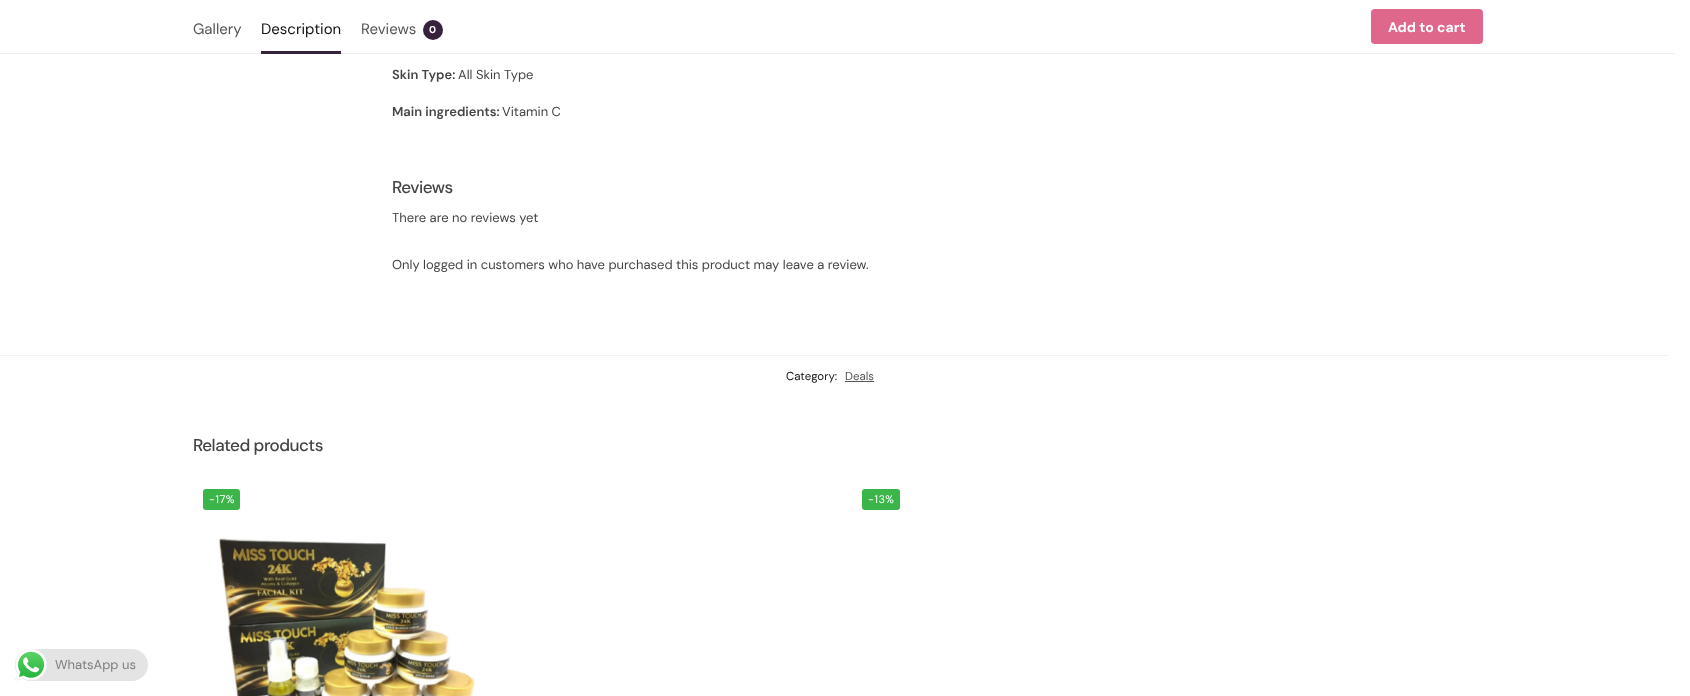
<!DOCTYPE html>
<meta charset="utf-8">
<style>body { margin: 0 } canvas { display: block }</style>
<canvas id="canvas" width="1690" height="696"></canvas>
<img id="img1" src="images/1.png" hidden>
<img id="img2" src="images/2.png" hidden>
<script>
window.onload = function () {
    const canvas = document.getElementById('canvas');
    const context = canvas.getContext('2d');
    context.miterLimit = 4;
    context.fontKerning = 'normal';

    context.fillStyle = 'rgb(255, 255, 255)';
    context.fillRect(0, 0, 1690, 696);
    context.fillStyle = 'rgb(238, 238, 238)';
    context.fillRect(0, 53, 1675, 1);
    context.fillStyle = 'rgb(54, 34, 59)';
    context.fillRect(261, 51, 80, 3);
    context.beginPath();
    context.arc(433, 30, 10, 0, 2 * Math.PI);
    context.fill();
    context.fillStyle = 'rgb(223, 103, 140)';
    context.beginPath();
    context.roundRect(1371, 9, 112, 35, 4);
    context.fill();
    context.fillStyle = 'rgb(242, 242, 242)';
    context.fillRect(0, 355, 1668, 1);
    context.fillStyle = 'rgb(85, 85, 85)';
    context.fillRect(845, 381, 29, 1);
    context.fillStyle = 'rgb(59, 181, 74)';
    context.beginPath();
    context.roundRect(203, 489, 37, 21, 3);
    context.fill();
    context.drawImage(document.getElementById('img1'), 219, 538, 256, 158);
    context.beginPath();
    context.roundRect(862, 489, 38, 21, 3);
    context.fill();
    context.fillStyle = 'rgb(228, 228, 228)';
    context.beginPath();
    context.roundRect(15, 649, 133, 32, 16);
    context.fill();
    context.drawImage(document.getElementById('img2'), 15, 649, 32, 32);
    context.font = '15px DM Sans';
    context.fillStyle = 'rgb(85, 85, 85)';
    context.fillText('Gallery', 193, 34);
    context.fillStyle = 'rgb(17, 17, 17)';
    context.fillText('Description', 261, 34);
    context.fillStyle = 'rgb(85, 85, 85)';
    context.fillText('Reviews', 361, 34);
    context.font = 'bold 10px DM Sans';
    context.fillStyle = 'rgb(255, 255, 255)';
    context.fillText('0', 429, 33);
    context.font = 'bold 14px DM Sans';
    context.fillText('Add to cart', 1388, 32);
    context.font = '600 13px DM Sans';
    context.fillStyle = 'rgb(68, 68, 68)';
    context.fillText('Skin Type:', 392, 79);
    context.font = '13px DM Sans';
    context.fillText('All Skin Type', 458, 79);
    context.font = '600 13px DM Sans';
    context.fillText('Main ingredients:', 392, 116);
    context.font = '13px DM Sans';
    context.fillText('Vitamin C', 502, 116);
    context.letterSpacing = '-0.5px';
    context.font = '500 17px DM Sans';
    context.fillText('Reviews', 392, 193);
    context.letterSpacing = '0px';
    context.font = '13px DM Sans';
    context.fillText('There are no reviews yet', 392, 222);
    context.fillText('Only logged in customers who have purchased this product may leave a review.', 392, 269);
    context.font = '11.5px DM Sans';
    context.fillStyle = 'rgb(17, 17, 17)';
    context.fillText('Category:', 786, 380);
    context.fillStyle = 'rgb(85, 85, 85)';
    context.fillText('Deals', 845, 380);
    context.letterSpacing = '-0.5px';
    context.font = '500 17px DM Sans';
    context.fillStyle = 'rgb(68, 68, 68)';
    context.fillText('Related products', 193, 451);
    context.letterSpacing = '0.5px';
    context.font = '11px DM Sans';
    context.fillStyle = 'rgb(255, 255, 255)';
    context.fillText('-17%', 209, 503);
    context.fillText('-13%', 868, 503);
    context.letterSpacing = '0px';
    context.font = '13px DM Sans';
    context.fillStyle = 'rgb(127, 125, 125)';
    context.fillText('WhatsApp us', 55, 669);
};
</script>
